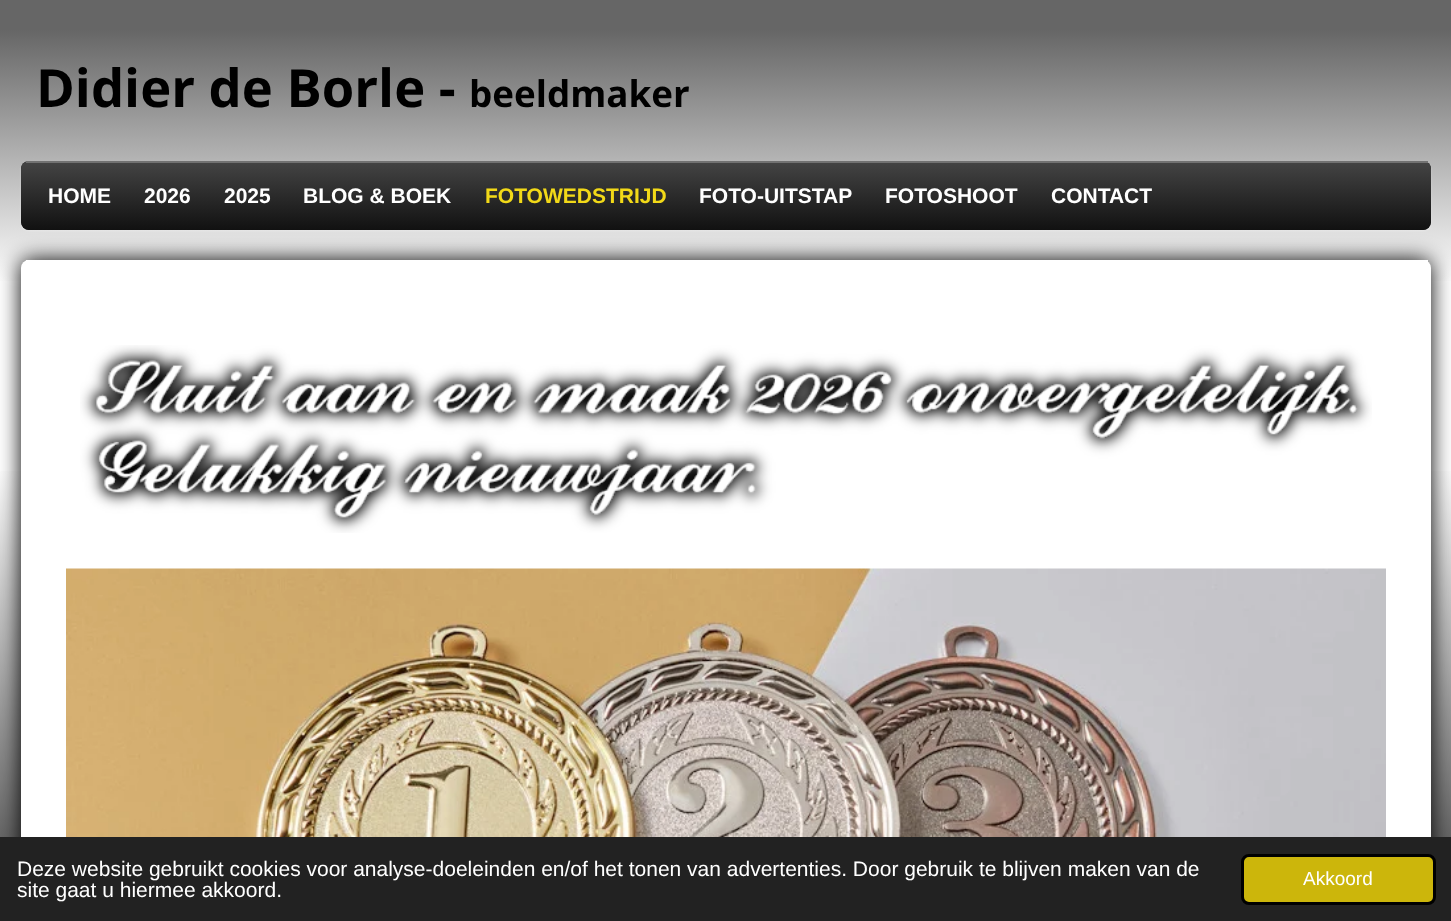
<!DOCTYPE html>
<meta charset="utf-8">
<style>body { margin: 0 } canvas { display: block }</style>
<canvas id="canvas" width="1451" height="921"></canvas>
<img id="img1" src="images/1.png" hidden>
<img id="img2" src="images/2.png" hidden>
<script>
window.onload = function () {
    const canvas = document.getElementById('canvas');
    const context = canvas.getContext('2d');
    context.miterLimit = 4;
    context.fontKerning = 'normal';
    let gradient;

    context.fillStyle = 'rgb(255, 255, 255)';
    context.fillRect(0, 0, 1451, 921);
    context.fillStyle = 'rgb(102, 102, 102)';
    context.fillRect(0, 0, 1451, 30);
    gradient = context.createLinearGradient(726, 285, 726, 30);
    gradient.addColorStop(0, 'rgb(255, 255, 255)');
    gradient.addColorStop(1, 'rgb(102, 102, 102)');
    context.fillStyle = gradient;
    context.fillRect(0, 30, 1451, 251);
    context.fillStyle = 'rgba(255, 255, 255, 0.3)';
    context.filter = 'blur(1px)';
    context.beginPath();
    context.roundRect(21, 162, 1410, 69, 8);
    context.fill();
    context.filter = 'none';
    context.fillStyle = 'rgb(17, 17, 17)';
    context.beginPath();
    context.roundRect(21, 161, 1410, 69, 8);
    context.fill();
    context.save();
    context.beginPath();
    context.roundRect(21, 161, 1410, 69, 8);
    context.clip();
    gradient = context.createLinearGradient(726, 230, 726, 162);
    gradient.addColorStop(0, 'rgb(17, 17, 17)');
    gradient.addColorStop(1, 'rgb(68, 68, 68)');
    context.fillStyle = gradient;
    context.beginPath();
    context.roundRect(21, 162, 1410, 68, [0, 0, 8, 8]);
    context.fill();
    context.restore();
    context.fillStyle = 'rgb(114, 114, 114)';
    context.fillRect(26, 161, 1402, 2);
    gradient = context.createLinearGradient(726, 840, 726, 465);
    gradient.addColorStop(0, 'rgb(102, 102, 102)');
    gradient.addColorStop(1, 'rgb(255, 255, 255)');
    context.fillStyle = gradient;
    context.fillRect(0, 471, 1451, 366);
    context.fillStyle = 'rgb(0, 0, 0)';
    context.filter = 'blur(11px)';
    context.beginPath();
    context.roundRect(21, 260, 1410, 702, 8);
    context.fill();
    context.filter = 'none';
    context.fillStyle = 'rgb(255, 255, 255)';
    context.beginPath();
    context.roundRect(21, 260, 1410, 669, 8);
    context.fill();
    context.fillRect(26, 260, 1402, 2);
    context.drawImage(document.getElementById('img1'), 80, 345, 1292, 188);
    context.drawImage(document.getElementById('img2'), 66, 568, 1320, 269);
    context.fillStyle = 'rgb(34, 34, 34)';
    context.fillRect(0, 837, 1451, 84);
    context.fillStyle = 'rgb(204, 182, 11)';
    context.beginPath();
    context.roundRect(1242.5, 855.5, 192, 48, 6.5);
    context.fill();
    context.strokeStyle = 'rgb(0, 0, 0)';
    context.lineWidth = 3;
    context.stroke();
    context.font = 'bold 52.5px Open Sans';
    context.fillStyle = 'rgb(0, 0, 0)';
    context.fillText('Didier de Borle -', 36, 107);
    context.font = 'bold 36.75px Open Sans';
    context.fillText('beeldmaker', 469, 107);
    context.font = 'bold 21px Liberation Sans';
    context.fillStyle = 'rgb(255, 255, 255)';
    context.fillText('HOME', 48, 203);
    context.fillText('2026', 144, 203);
    context.fillText('2025', 224, 203);
    context.fillText('BLOG & BOEK', 303, 203);
    context.fillStyle = 'rgb(242, 217, 24)';
    context.fillText('FOTOWEDSTRIJD', 485, 203);
    context.fillStyle = 'rgb(255, 255, 255)';
    context.fillText('FOTO-UITSTAP', 699, 203);
    context.fillText('FOTOSHOOT', 885, 203);
    context.fillText('CONTACT', 1051, 203);
    context.font = '21px Liberation Sans';
    context.fillText('Deze website gebruikt cookies voor analyse-doeleinden en/of het tonen van advertenties. Door gebruik te blijven maken van de', 17, 876);
    context.fillText('site gaat u hiermee akkoord.', 17, 897);
    context.font = '19px Liberation Sans';
    context.fillText('Akkoord', 1303, 885);
};
</script>
